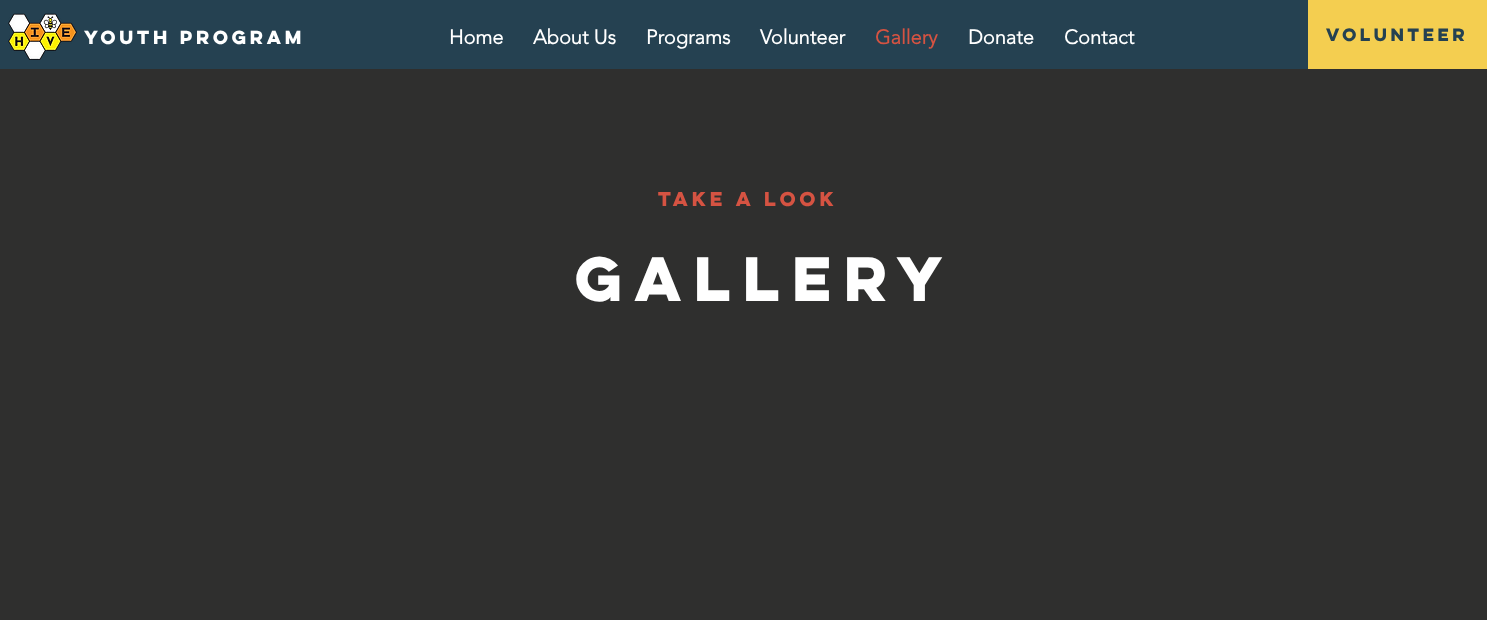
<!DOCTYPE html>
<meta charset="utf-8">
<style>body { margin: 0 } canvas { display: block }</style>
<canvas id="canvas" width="1487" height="620"></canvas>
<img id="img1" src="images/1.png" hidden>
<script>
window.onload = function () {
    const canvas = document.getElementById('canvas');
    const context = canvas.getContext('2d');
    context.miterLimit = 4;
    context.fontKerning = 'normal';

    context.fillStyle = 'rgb(47, 47, 46)';
    context.fillRect(0, 0, 1487, 620);
    context.fillStyle = 'rgb(37, 65, 81)';
    context.fillRect(0, 0, 1308, 69);
    context.drawImage(document.getElementById('img1'), 8, 13, 69, 47);
    context.fillStyle = 'rgb(244, 206, 80)';
    context.fillRect(1308, 0, 179, 69);
    context.font = 'bold 17px "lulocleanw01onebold"';
    context.fillStyle = 'rgb(255, 255, 255)';
    context.fillText('YOUTH PROGRAM', 84, 44);
    context.font = 'bold 20px "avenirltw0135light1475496"';
    context.fillText('Home', 449, 44);
    context.fillText('About Us', 533, 44);
    context.fillText('Programs', 646, 44);
    context.fillText('Volunteer', 760, 44);
    context.fillStyle = 'rgb(213, 83, 66)';
    context.fillText('Gallery', 875, 44);
    context.fillStyle = 'rgb(255, 255, 255)';
    context.fillText('Donate', 968, 44);
    context.fillText('Contact', 1064, 44);
    context.font = 'bold 16px "lulocleanw01onebold"';
    context.fillStyle = 'rgb(37, 65, 81)';
    context.fillText('Volunteer', 1326, 41);
    context.font = 'bold 18px "lulocleanw01onebold"';
    context.fillStyle = 'rgb(213, 83, 66)';
    context.fillText('Take a look', 658, 206);
    context.font = 'bold 56px "lulocleanw01onebold"';
    context.fillStyle = 'rgb(255, 255, 255)';
    context.fillText('Gallery', 575, 301);
};
</script>
